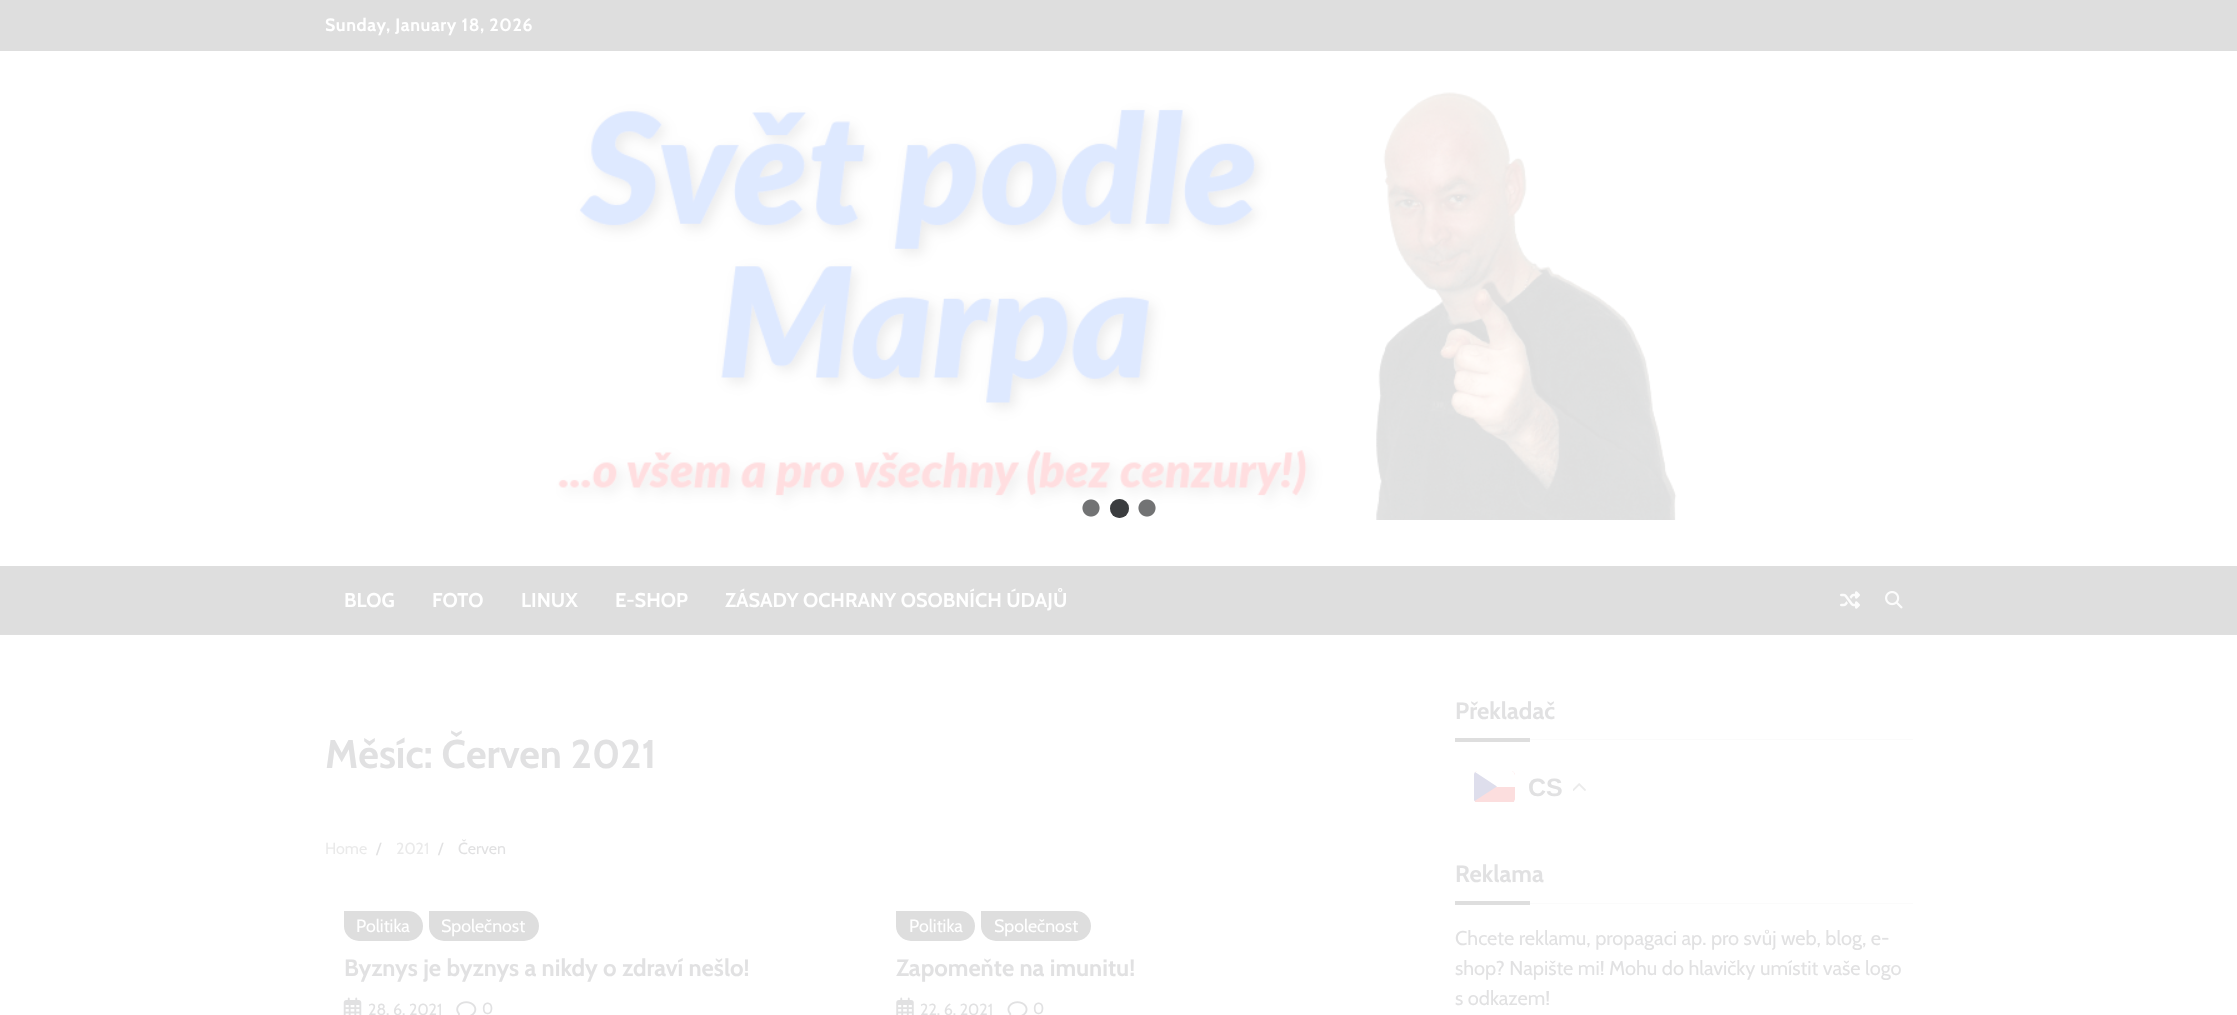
<!DOCTYPE html>
<meta charset="utf-8">
<style>body { margin: 0 } canvas { display: block }</style>
<canvas id="canvas" width="2237" height="1015"></canvas>
<img id="img1" src="images/1.png" hidden>
<img id="img2" src="images/2.png" hidden>
<img id="img3" src="images/3.png" hidden>
<img id="img4" src="images/4.png" hidden>
<img id="img5" src="images/5.png" hidden>
<img id="img6" src="images/6.png" hidden>
<img id="img7" src="images/7.png" hidden>
<img id="img8" src="images/8.png" hidden>
<script>
window.onload = function () {
    const canvas = document.getElementById('canvas');
    const context = canvas.getContext('2d');
    context.miterLimit = 4;
    context.fontKerning = 'normal';
    let gradient;

    context.fillStyle = 'rgb(255, 255, 255)';
    context.fillRect(0, 0, 2237, 1015);
    context.fillStyle = 'rgb(222, 222, 222)';
    context.fillRect(0, 0, 2237, 51);
    context.drawImage(document.getElementById('img1'), 556, 92, 1121, 428);
    context.fillRect(0, 566, 2237, 68);
    context.fillStyle = 'rgb(223, 223, 223)';
    context.fillRect(0, 634, 2237, 1);
    context.drawImage(document.getElementById('img2'), 1840, 591, 20, 18);
    context.drawImage(document.getElementById('img3'), 1885, 590, 18, 19);
    gradient = context.createRadialGradient(1147, 508, 0, 1147, 508, 9);
    gradient.addColorStop(0.9, 'rgb(114, 115, 116)');
    gradient.addColorStop(1, 'rgb(255, 255, 255)');
    context.fillStyle = gradient;
    context.fillRect(1138, 499, 18, 18);
    gradient = context.createRadialGradient(1091, 508, 0, 1091, 508, 9);
    gradient.addColorStop(0.9, 'rgb(114, 115, 116)');
    gradient.addColorStop(1, 'rgb(255, 255, 255)');
    context.fillStyle = gradient;
    context.fillRect(1082, 499, 18, 18);
    context.fillStyle = 'rgb(114, 115, 116)';
    context.beginPath();
    context.arc(1119.5, 508.5, 9.5, 0, 2 * Math.PI);
    context.fill();
    context.fillStyle = 'rgba(25, 27, 29, 0.61)';
    context.beginPath();
    context.arc(1119.5, 508.5, 9.5, 0, 2 * Math.PI);
    context.fill();
    context.fillStyle = 'rgb(222, 222, 222)';
    context.beginPath();
    context.roundRect(344, 911, 79, 30, [0, 15, 15, 15]);
    context.fill();
    context.beginPath();
    context.roundRect(429, 911, 110, 30, [0, 15, 15, 15]);
    context.fill();
    context.drawImage(document.getElementById('img4'), 343, 997, 19, 18);
    context.drawImage(document.getElementById('img5'), 456, 1001, 21, 14);
    context.beginPath();
    context.roundRect(896, 911, 79, 30, [0, 15, 15, 15]);
    context.fill();
    context.beginPath();
    context.roundRect(981, 911, 110, 30, [0, 15, 15, 15]);
    context.fill();
    context.drawImage(document.getElementById('img6'), 896, 997, 18, 18);
    context.drawImage(document.getElementById('img7'), 1007, 1001, 21, 14);
    context.fillStyle = 'rgb(251, 251, 251)';
    context.fillRect(1530, 739, 383, 1);
    context.fillStyle = 'rgb(222, 222, 222)';
    context.fillRect(1455, 738, 75, 4);
    context.fillStyle = 'rgb(252, 222, 222)';
    context.beginPath();
    context.moveTo(1512, 771);
    context.lineTo(1477, 771);
    context.bezierCurveTo(1475, 772, 1474, 773, 1474, 775);
    context.lineTo(1474, 799);
    context.bezierCurveTo(1474, 800, 1475, 801, 1475, 802);
    context.lineTo(1514, 802);
    context.bezierCurveTo(1514, 801, 1515, 800, 1515, 799);
    context.lineTo(1515, 775);
    context.bezierCurveTo(1515, 773, 1514, 772, 1512, 771);
    context.closePath();
    context.fill();
    context.save();
    context.beginPath();
    context.rect(1474, 771, 41, 32);
    context.clip();
    context.fillStyle = 'rgb(255, 255, 255)';
    context.beginPath();
    context.moveTo(1512, 771);
    context.lineTo(1477, 771);
    context.bezierCurveTo(1475, 772, 1474, 773, 1474, 775);
    context.lineTo(1474, 787);
    context.lineTo(1515, 787);
    context.bezierCurveTo(1515, 783, 1517, 773, 1512, 771);
    context.closePath();
    context.fill();
    context.fillStyle = 'rgb(222, 222, 236)';
    context.beginPath();
    context.moveTo(1475, 772);
    context.lineTo(1497, 786.5);
    context.lineTo(1474.5, 801);
    context.bezierCurveTo(1473.5, 799.5, 1474, 797, 1474, 795);
    context.lineTo(1474, 774);
    context.closePath();
    context.fill();
    context.restore();
    context.drawImage(document.getElementById('img8'), 1573, 783, 13, 8);
    context.fillStyle = 'rgb(251, 251, 251)';
    context.fillRect(1530, 903, 383, 1);
    context.fillStyle = 'rgb(222, 222, 222)';
    context.fillRect(1455, 901, 75, 4);
    context.letterSpacing = '0.6px';
    context.font = 'bold 17.75px Cabin';
    context.fillStyle = 'rgb(255, 255, 255)';
    context.fillText('Sunday, January 18, 2026', 325, 31);
    context.letterSpacing = '0px';
    context.font = 'bold 20px Cabin';
    context.fillText('BLOG', 344, 607);
    context.fillText('FOTO', 432, 607);
    context.fillText('LINUX', 521, 607);
    context.fillText('E-SHOP', 615, 607);
    context.fillText('ZÁSADY OCHRANY OSOBNÍCH ÚDAJŮ', 725, 607);
    context.font = 'bold 40px Cabin';
    context.fillStyle = 'rgb(225, 225, 226)';
    context.fillText('Měsíc: Červen 2021', 325, 768);
    context.font = '16px Cabin';
    context.fillStyle = 'rgb(234, 234, 234)';
    context.fillText('Home', 325, 854);
    context.fillStyle = 'rgb(225, 225, 226)';
    context.fillText('/', 376, 854);
    context.fillStyle = 'rgb(234, 234, 234)';
    context.fillText('2021', 396, 854);
    context.fillStyle = 'rgb(225, 225, 226)';
    context.fillText('/', 438, 854);
    context.fillText('Červen', 458, 854);
    context.font = '17.75px Cabin';
    context.fillStyle = 'rgb(255, 255, 255)';
    context.fillText('Politika', 356, 932);
    context.fillText('Společnost', 441, 932);
    context.font = 'bold 23.75px Cabin';
    context.fillStyle = 'rgb(225, 225, 226)';
    context.fillText('Byznys je byznys a nikdy o zdraví nešlo!', 344, 976);
    context.font = '16px Cabin';
    context.fillText('28. 6. 2021', 368, 1015);
    context.fillText('0', 482, 1014);
    context.font = '17.75px Cabin';
    context.fillStyle = 'rgb(255, 255, 255)';
    context.fillText('Politika', 909, 932);
    context.fillText('Společnost', 994, 932);
    context.font = 'bold 23.75px Cabin';
    context.fillStyle = 'rgb(225, 225, 226)';
    context.fillText('Zapomeňte na imunitu!', 896, 976);
    context.font = '16px Cabin';
    context.fillText('22. 6. 2021', 920, 1015);
    context.fillText('0', 1033, 1014);
    context.font = 'bold 23.75px Cabin';
    context.fillText('Překladač', 1455, 719);
    context.font = 'bold 25px Liberation Sans';
    context.fillText('CS', 1528, 796);
    context.font = 'bold 23.75px Cabin';
    context.fillText('Reklama', 1455, 882);
    context.font = '20px Cabin';
    context.fillText('Chcete reklamu, propagaci ap. pro svůj web, blog, e-', 1455, 945);
    context.fillText('shop? Napište mi! Mohu do hlavičky umístit vaše logo', 1455, 975);
    context.fillText('s odkazem!', 1455, 1005);
};
</script>
